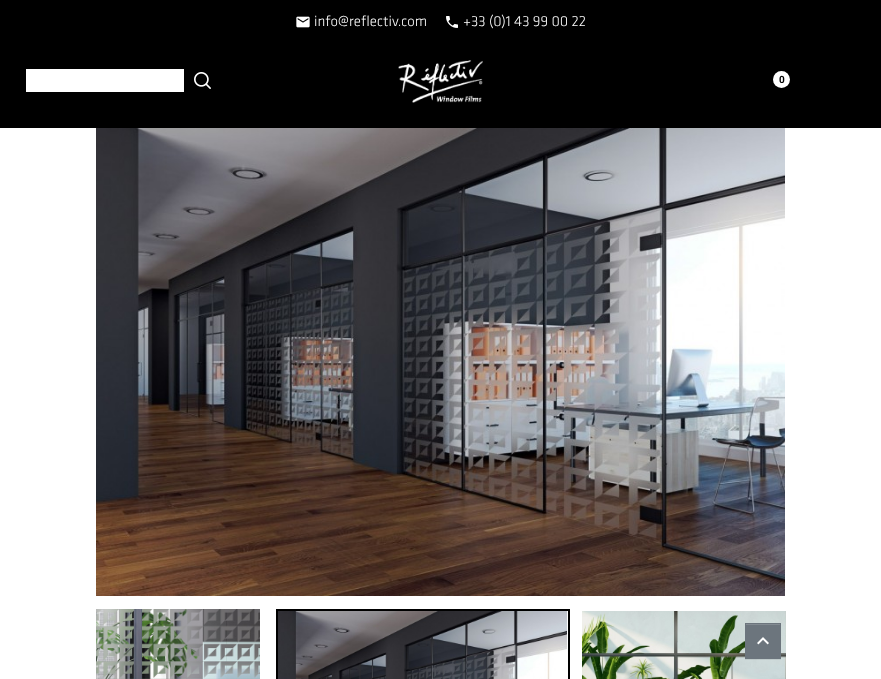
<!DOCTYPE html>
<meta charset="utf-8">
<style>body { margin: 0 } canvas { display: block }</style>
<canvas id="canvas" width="881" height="679"></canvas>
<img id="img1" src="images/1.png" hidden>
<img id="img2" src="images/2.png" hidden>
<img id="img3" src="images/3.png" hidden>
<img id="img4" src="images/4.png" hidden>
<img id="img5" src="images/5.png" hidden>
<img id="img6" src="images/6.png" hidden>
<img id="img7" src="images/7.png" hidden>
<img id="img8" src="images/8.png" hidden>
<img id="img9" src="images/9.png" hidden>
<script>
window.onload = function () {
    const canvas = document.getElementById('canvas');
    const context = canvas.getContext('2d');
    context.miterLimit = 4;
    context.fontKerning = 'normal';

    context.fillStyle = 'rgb(255, 255, 255)';
    context.fillRect(0, 0, 881, 679);
    context.fillStyle = 'rgb(0, 0, 0)';
    context.fillRect(0, 0, 881, 128);
    context.drawImage(document.getElementById('img1'), 296, 16, 14, 12);
    context.drawImage(document.getElementById('img2'), 446, 16, 12, 12);
    context.drawImage(document.getElementById('img3'), 398, 60, 85, 43);
    context.fillStyle = 'rgb(255, 255, 255)';
    context.fillRect(26, 69, 158, 23);
    context.drawImage(document.getElementById('img4'), 194, 72, 17, 17);
    context.beginPath();
    context.arc(781.5, 79.5, 8.5, 0, 2 * Math.PI);
    context.fill();
    context.drawImage(document.getElementById('img5'), 96, 128, 689, 468);
    context.drawImage(document.getElementById('img6'), 96, 609, 164, 70);
    context.strokeStyle = 'rgb(0, 0, 0)';
    context.lineWidth = 2;
    context.strokeRect(277, 610, 292, 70);
    context.drawImage(document.getElementById('img7'), 278, 611, 289, 68);
    context.drawImage(document.getElementById('img8'), 582, 611, 204, 68);
    context.fillStyle = 'rgba(0, 0, 0, 0.07)';
    context.filter = 'blur(0.5px)';
    context.beginPath();
    context.rect(745, 624, 36, 36);
    context.fill();
    context.filter = 'none';
    context.fillStyle = 'rgb(108, 117, 125)';
    context.fillRect(745, 623, 36, 36);
    context.fillStyle = 'rgb(130, 138, 145)';
    context.fillRect(746, 624, 34, 1);
    context.drawImage(document.getElementById('img9'), 757, 637, 12, 8);
    context.font = '300 15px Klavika';
    context.fillStyle = 'rgb(255, 255, 255)';
    context.fillText('info@reflectiv.com', 314, 26);
    context.fillText('+33 (0)1 43 99 00 22', 463, 26);
    context.letterSpacing = '-1px';
    context.font = 'bold 10px Roboto';
    context.fillStyle = 'rgb(0, 0, 0)';
    context.fillText('0', 779, 83);
};
</script>
